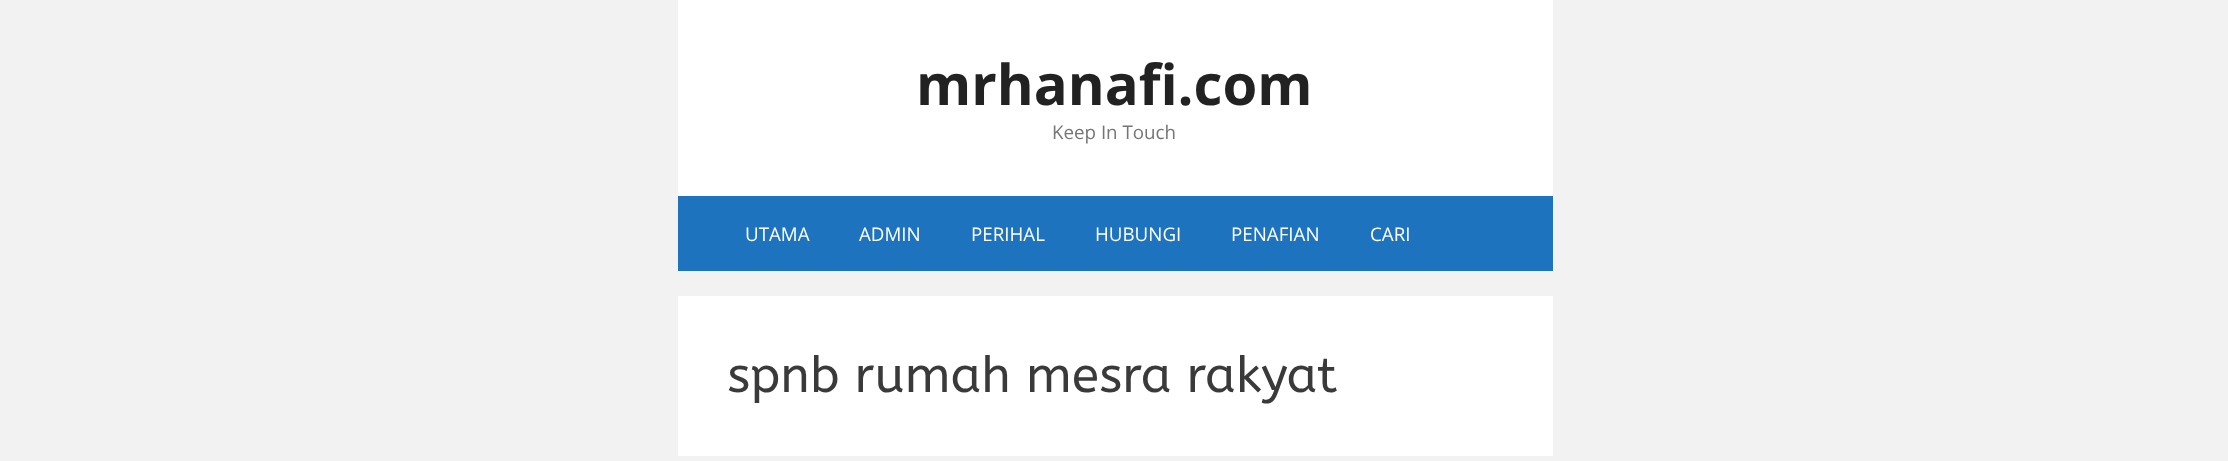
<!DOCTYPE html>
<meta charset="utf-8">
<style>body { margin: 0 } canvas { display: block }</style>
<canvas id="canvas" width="2228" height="461"></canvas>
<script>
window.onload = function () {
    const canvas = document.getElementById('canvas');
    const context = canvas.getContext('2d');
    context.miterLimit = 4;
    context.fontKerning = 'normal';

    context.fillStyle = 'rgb(242, 242, 242)';
    context.fillRect(0, 0, 2228, 461);
    context.fillStyle = 'rgb(255, 255, 255)';
    context.fillRect(678, 0, 875, 196);
    context.fillStyle = 'rgb(30, 115, 190)';
    context.fillRect(678, 196, 875, 75);
    context.fillStyle = 'rgb(255, 255, 255)';
    context.fillRect(678, 296, 875, 160);
    context.font = 'bold 56.25px Open Sans';
    context.fillStyle = 'rgb(34, 34, 34)';
    context.fillText('mrhanafi.com', 916, 105);
    context.font = '18.75px Open Sans';
    context.fillStyle = 'rgb(117, 117, 117)';
    context.fillText('Keep In Touch', 1052, 139);
    context.fillStyle = 'rgb(255, 255, 255)';
    context.fillText('UTAMA', 745, 241);
    context.fillText('ADMIN', 859, 241);
    context.fillText('PERIHAL', 971, 241);
    context.fillText('HUBUNGI', 1095, 241);
    context.fillText('PENAFIAN', 1231, 241);
    context.fillText('CARI', 1370, 241);
    context.font = '50px ABeeZee';
    context.fillStyle = 'rgb(58, 58, 58)';
    context.fillText('spnb rumah mesra rakyat', 727, 392);
};
</script>
